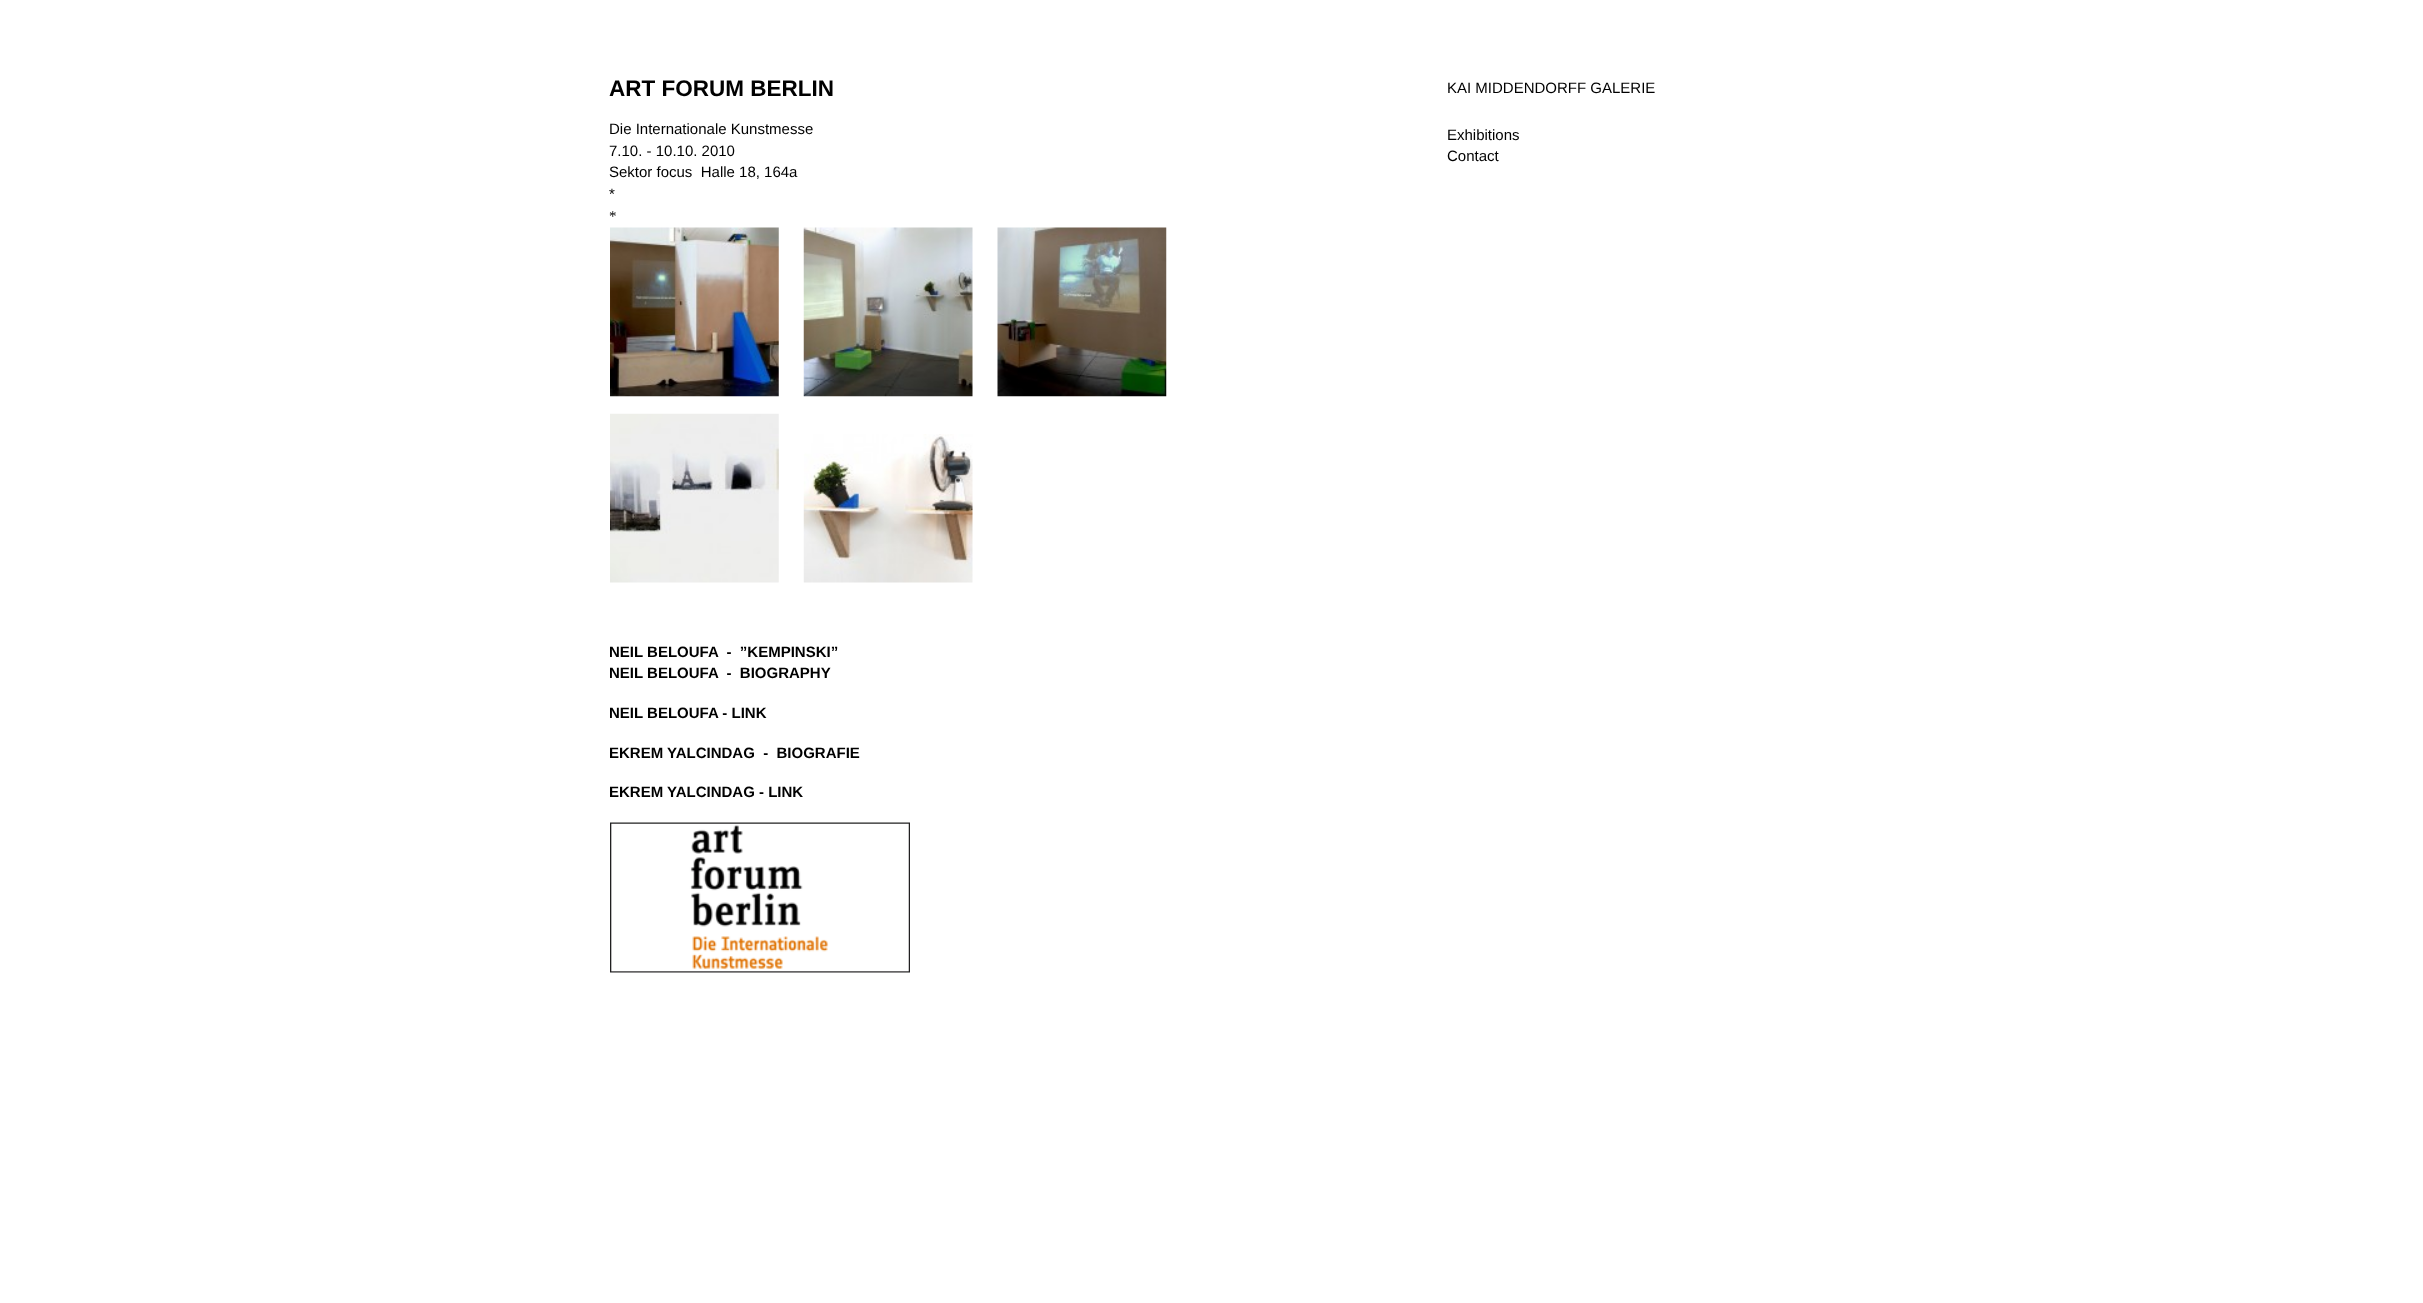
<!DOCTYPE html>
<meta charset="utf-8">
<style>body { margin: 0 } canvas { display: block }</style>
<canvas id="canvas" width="2423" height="1303"></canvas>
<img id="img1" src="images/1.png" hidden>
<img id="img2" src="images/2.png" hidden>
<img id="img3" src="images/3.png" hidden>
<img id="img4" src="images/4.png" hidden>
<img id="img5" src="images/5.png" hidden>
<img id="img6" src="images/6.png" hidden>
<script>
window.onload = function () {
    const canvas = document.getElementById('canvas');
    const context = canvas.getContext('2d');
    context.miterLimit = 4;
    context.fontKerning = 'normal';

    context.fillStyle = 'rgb(255, 255, 255)';
    context.fillRect(0, 0, 2423, 1303);
    context.drawImage(document.getElementById('img1'), 610, 227, 169, 170);
    context.drawImage(document.getElementById('img2'), 803, 227, 170, 170);
    context.drawImage(document.getElementById('img3'), 997, 227, 170, 170);
    context.drawImage(document.getElementById('img4'), 610, 413, 169, 170);
    context.drawImage(document.getElementById('img5'), 803, 434, 170, 149);
    context.drawImage(document.getElementById('img6'), 610, 822, 300, 151);
    context.font = 'bold 22.5px Liberation Sans';
    context.fillStyle = 'rgb(0, 0, 0)';
    context.fillText('ART FORUM BERLIN', 609, 96);
    context.font = '15px Liberation Sans';
    context.fillText('Die Internationale Kunstmesse', 609, 134);
    context.fillText('7.10. - 10.10. 2010', 609, 156);
    context.fillText('Sektor focus  Halle 18, 164a', 609, 177);
    context.fillText('*', 609, 199);
    context.font = '15px Liberation Serif';
    context.fillText('*', 609, 221);
    context.font = 'bold 15px Liberation Sans';
    context.fillText('NEIL BELOUFA  -  ”KEMPINSKI”', 609, 657);
    context.fillText('NEIL BELOUFA  -  BIOGRAPHY', 609, 678);
    context.fillText('NEIL BELOUFA - LINK', 609, 718);
    context.fillText('EKREM YALCINDAG  -  BIOGRAFIE', 609, 758);
    context.fillText('EKREM YALCINDAG - LINK', 609, 797);
    context.font = '15px Liberation Sans';
    context.fillText('KAI MIDDENDORFF GALERIE', 1447, 93);
    context.fillText('Exhibitions', 1447, 140);
    context.fillText('Contact', 1447, 161);
};
</script>
